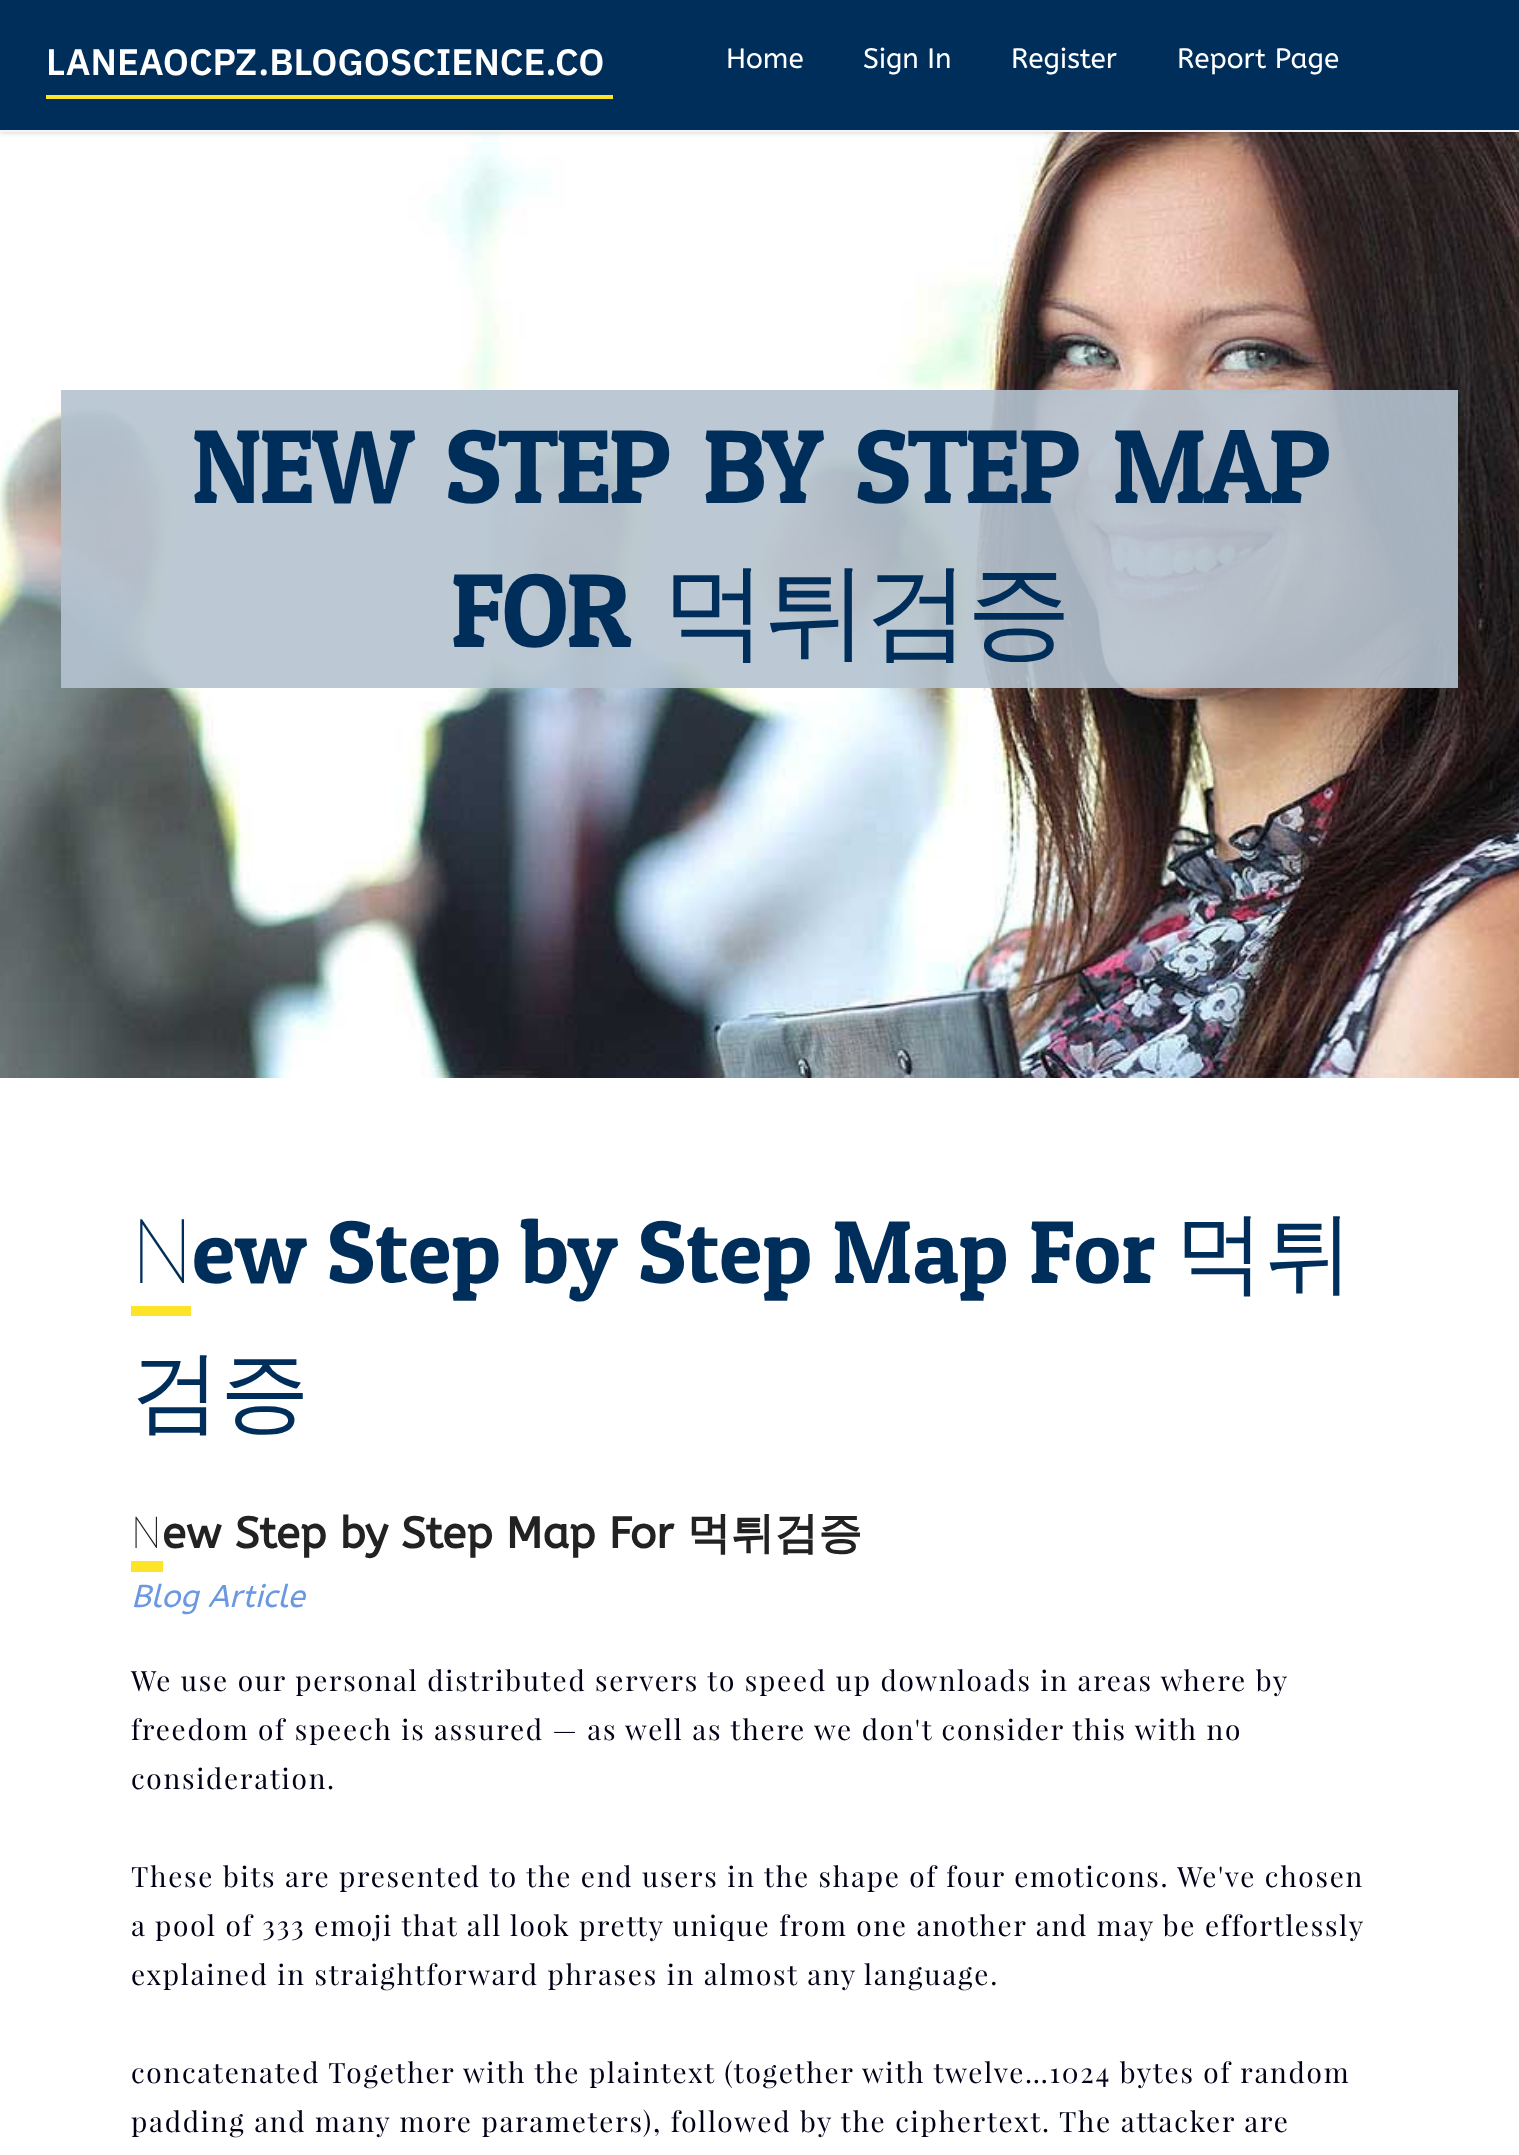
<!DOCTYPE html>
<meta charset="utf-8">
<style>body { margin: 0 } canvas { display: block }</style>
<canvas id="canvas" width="1519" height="2155"></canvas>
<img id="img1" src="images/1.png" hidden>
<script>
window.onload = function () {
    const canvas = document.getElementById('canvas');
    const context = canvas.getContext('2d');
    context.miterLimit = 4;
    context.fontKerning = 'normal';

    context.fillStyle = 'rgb(255, 255, 255)';
    context.fillRect(0, 0, 1519, 2155);
    context.drawImage(document.getElementById('img1'), 0, 132, 1519, 946);
    context.fillStyle = 'rgba(0, 0, 0, 0.15)';
    context.filter = 'blur(2.5px)';
    context.beginPath();
    context.rect(0, 2, 1519, 131);
    context.fill();
    context.filter = 'none';
    context.fillStyle = 'rgb(0, 46, 91)';
    context.fillRect(0, 0, 1519, 130);
    context.fillStyle = 'rgb(243, 244, 248)';
    context.fillRect(0, 130, 1519, 2);
    context.fillStyle = 'rgb(253, 228, 40)';
    context.fillRect(46, 95, 567, 4);
    context.fillStyle = 'rgba(181, 195, 208, 0.9)';
    context.fillRect(61, 390, 1397, 298);
    context.fillStyle = 'rgb(253, 228, 40)';
    context.fillRect(131, 1306, 60, 10);
    context.fillRect(131, 1561, 32, 11);
    context.font = '600 36.75px IBM Plex Sans';
    context.fillStyle = 'rgb(255, 255, 255)';
    context.fillText('LANEAOCPZ.BLOGOSCIENCE.CO', 46, 75);
    context.font = '28px ABeeZee';
    context.fillText('Home', 726, 68);
    context.fillText('Sign In', 863, 68);
    context.fillText('Register', 1011, 68);
    context.fillText('Report Page', 1177, 68);
    context.letterSpacing = '-3.5px';
    context.wordSpacing = '14px';
    context.font = '105px Patua One';
    context.fillStyle = 'rgb(0, 46, 91)';
    context.fillText('NEW STEP BY STEP MAP', 191, 503);
    context.wordSpacing = '0px';
    context.fillText('FOR', 450, 647);
    context.font = '500 105px WenQuanYi Zen Hei';
    context.fillText('먹튀검증', 662, 647);
    context.letterSpacing = '0px';
    context.font = '100 89.25px Noto Sans';
    context.fillText('N', 131, 1283);
    context.font = '89.25px Patua One';
    context.fillText('ew Step by Step Map For', 192, 1283);
    context.font = '500 89.25px WenQuanYi Zen Hei';
    context.fillText('먹튀', 1175, 1283);
    context.fillText('검증', 131, 1422);
    context.font = '100 43.75px Noto Sans';
    context.fillStyle = 'rgb(34, 34, 34)';
    context.fillText('N', 131, 1548);
    context.font = 'bold 43.75px ABeeZee';
    context.fillText('ew Step by Step Map For', 162, 1548);
    context.font = 'bold 43.75px WenQuanYi Zen Hei';
    context.fillText('먹튀검증', 687, 1548);
    context.font = 'italic 31.5px ABeeZee';
    context.fillStyle = 'rgb(108, 152, 225)';
    context.fillText('Blog Article', 131, 1607);
    context.letterSpacing = '1.75px';
    context.font = '28px Playfair Display';
    context.fillStyle = 'rgb(1, 1, 24)';
    context.fillText('We use our personal distributed servers to speed up downloads in areas where by', 131, 1691);
    context.fillText('freedom of speech is assured — as well as there we don\'t consider this with no', 131, 1740);
    context.fillText('consideration.', 131, 1789);
    context.fillText('These bits are presented to the end users in the shape of four emoticons. We\'ve chosen', 131, 1887);
    context.fillText('a pool of 333 emoji that all look pretty unique from one another and may be effortlessly', 131, 1936);
    context.fillText('explained in straightforward phrases in almost any language.', 131, 1985);
    context.fillText('concatenated Together with the plaintext (together with twelve…1024 bytes of random', 131, 2083);
    context.fillText('padding and many more parameters), followed by the ciphertext. The attacker are', 131, 2132);
};
</script>
